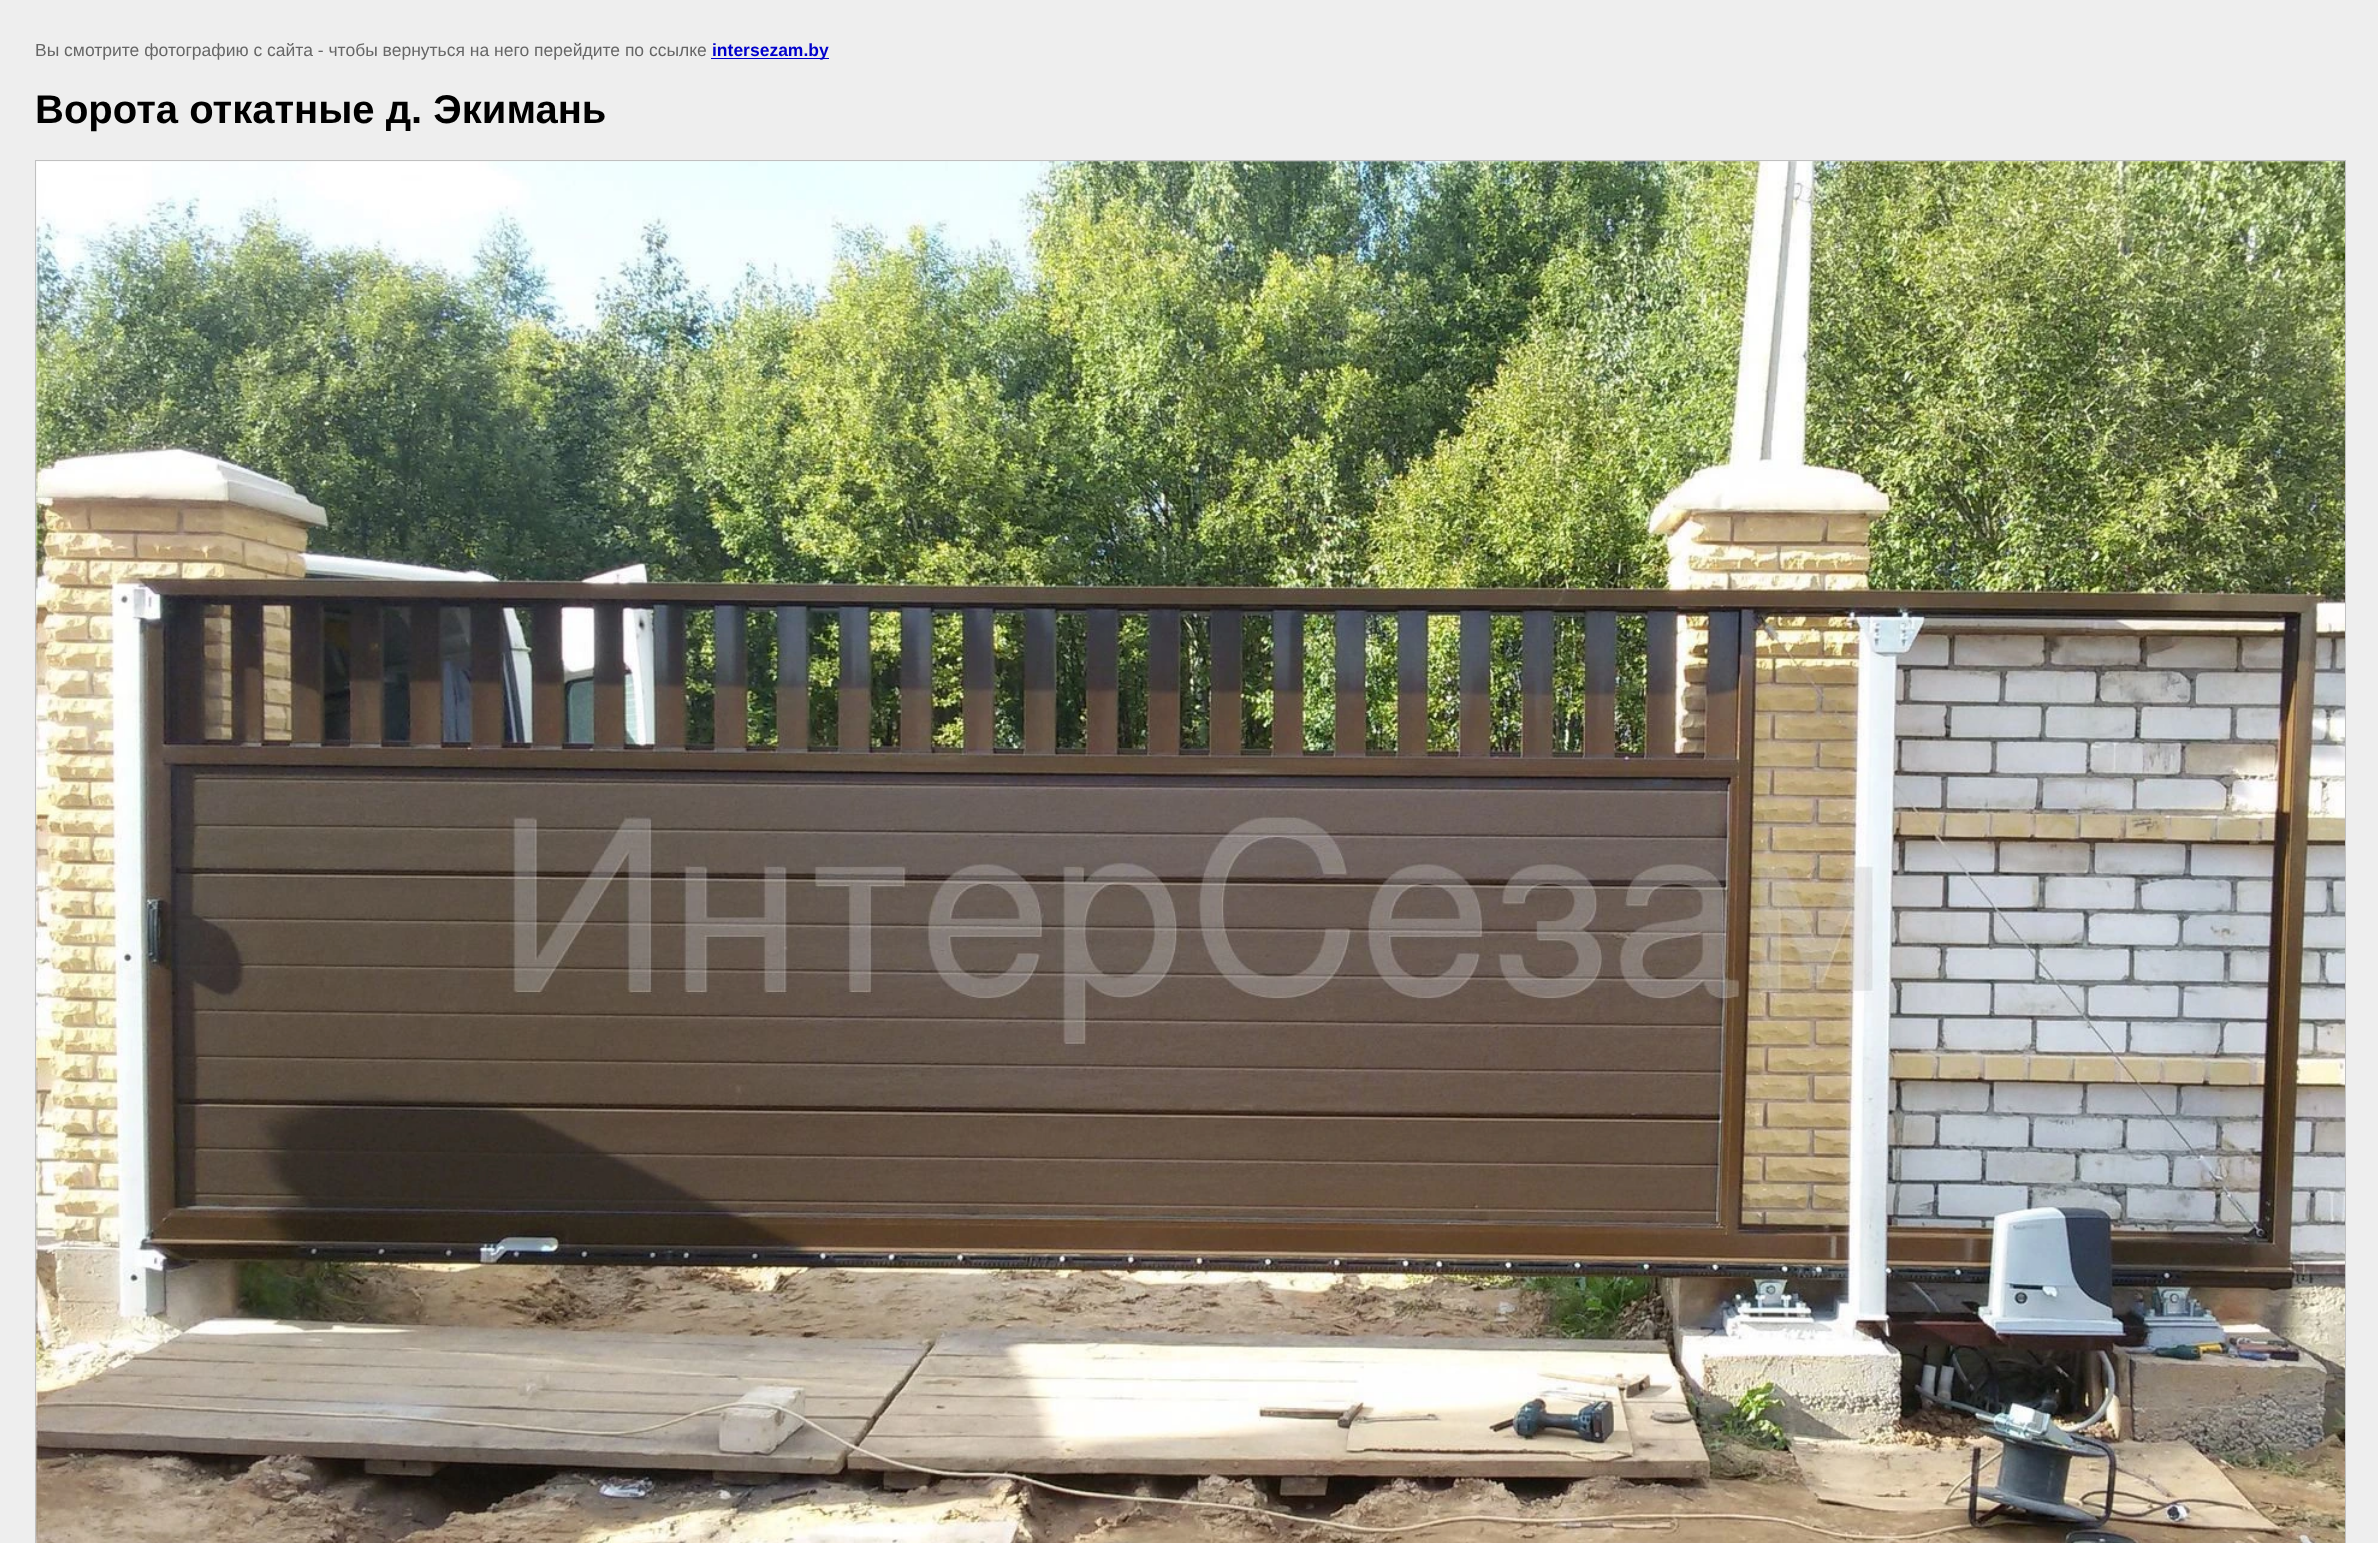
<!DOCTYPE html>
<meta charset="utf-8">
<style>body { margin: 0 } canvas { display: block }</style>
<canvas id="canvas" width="2378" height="1543"></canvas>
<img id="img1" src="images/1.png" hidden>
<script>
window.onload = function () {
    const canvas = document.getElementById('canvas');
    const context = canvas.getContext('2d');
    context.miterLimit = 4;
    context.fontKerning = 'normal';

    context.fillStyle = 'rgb(238, 238, 238)';
    context.fillRect(0, 0, 2378, 1543);
    context.fillStyle = 'rgb(0, 0, 204)';
    context.fillRect(711, 58, 118, 1);
    context.strokeStyle = 'rgb(192, 192, 192)';
    context.strokeRect(35.5, 160.5, 2310, 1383);
    context.drawImage(document.getElementById('img1'), 36, 161, 2309, 1382);
    context.font = '17.5px Liberation Sans';
    context.fillStyle = 'rgb(102, 102, 102)';
    context.fillText('Вы смотрите фотографию с сайта - чтобы вернуться на него перейдите по ссылке', 35, 56);
    context.font = 'bold 17.5px Liberation Sans';
    context.fillStyle = 'rgb(0, 0, 204)';
    context.fillText('intersezam.by', 712, 56);
    context.font = 'bold 40px Liberation Sans';
    context.fillStyle = 'rgb(0, 0, 0)';
    context.fillText('Ворота откатные д. Экимань', 35, 123);
};
</script>
